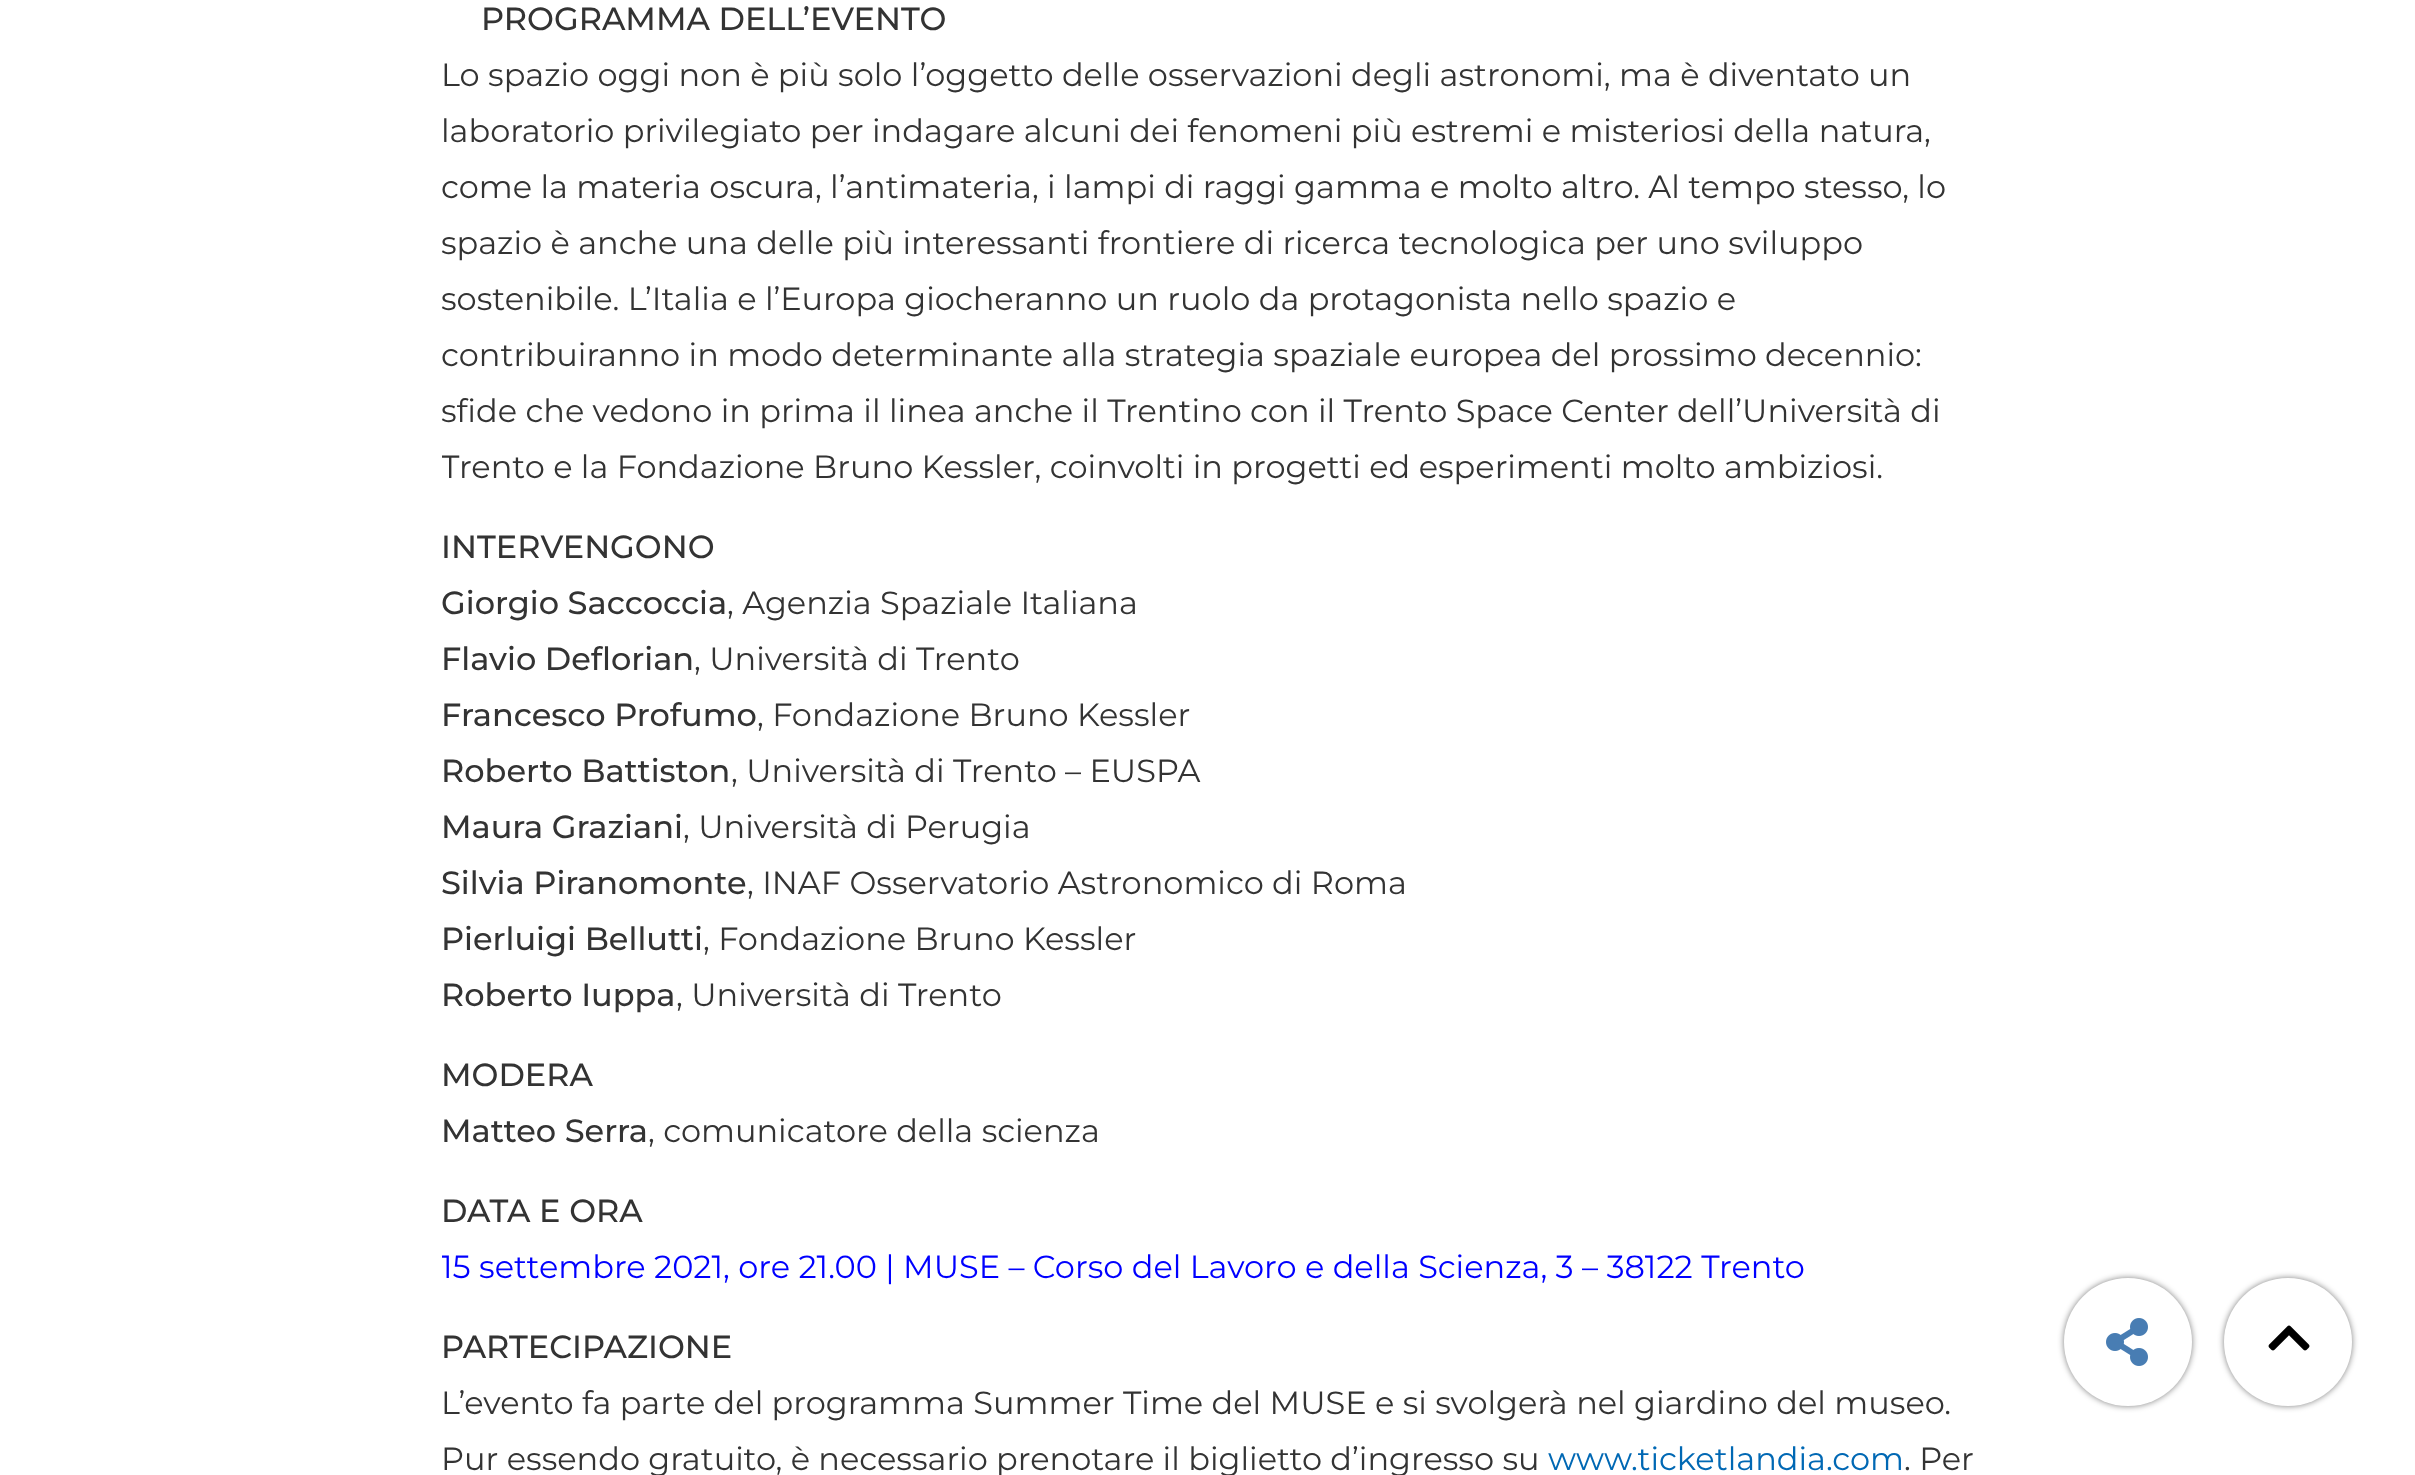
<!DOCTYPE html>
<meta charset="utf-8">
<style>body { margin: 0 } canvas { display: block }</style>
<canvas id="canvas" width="2415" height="1475"></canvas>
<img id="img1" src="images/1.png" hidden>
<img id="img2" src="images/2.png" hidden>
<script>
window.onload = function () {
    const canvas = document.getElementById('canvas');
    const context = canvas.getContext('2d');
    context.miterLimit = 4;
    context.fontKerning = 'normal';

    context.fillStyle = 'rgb(255, 255, 255)';
    context.fillRect(0, 0, 2415, 1475);
    context.fillStyle = 'rgba(0, 0, 0, 0.5)';
    context.filter = 'blur(3px)';
    context.beginPath();
    context.roundRect(2064, 1278, 128, 128, 64);
    context.fill();
    context.filter = 'none';
    context.fillStyle = 'rgb(255, 255, 255)';
    context.beginPath();
    context.arc(2128, 1342, 64, 0, 2 * Math.PI);
    context.fill();
    context.drawImage(document.getElementById('img1'), 2106, 1318, 42, 48);
    context.fillStyle = 'rgba(0, 0, 0, 0.5)';
    context.filter = 'blur(3px)';
    context.beginPath();
    context.roundRect(2224, 1278, 128, 128, 64);
    context.fill();
    context.filter = 'none';
    context.fillStyle = 'rgb(255, 255, 255)';
    context.beginPath();
    context.arc(2288, 1342, 64, 0, 2 * Math.PI);
    context.fill();
    context.drawImage(document.getElementById('img2'), 2268, 1325, 42, 26);
    context.font = '500 32px Montserrat';
    context.fillStyle = 'rgb(51, 51, 51)';
    context.fillText('PROGRAMMA DELL’EVENTO', 481, 30);
    context.font = '32px Montserrat';
    context.fillText('Lo spazio oggi non è più solo l’oggetto delle osservazioni degli astronomi, ma è diventato un', 441, 86);
    context.fillText('laboratorio privilegiato per indagare alcuni dei fenomeni più estremi e misteriosi della natura,', 441, 142);
    context.fillText('come la materia oscura, l’antimateria, i lampi di raggi gamma e molto altro. Al tempo stesso, lo', 441, 198);
    context.fillText('spazio è anche una delle più interessanti frontiere di ricerca tecnologica per uno sviluppo', 441, 254);
    context.fillText('sostenibile. L’Italia e l’Europa giocheranno un ruolo da protagonista nello spazio e', 441, 310);
    context.fillText('contribuiranno in modo determinante alla strategia spaziale europea del prossimo decennio:', 441, 366);
    context.fillText('sfide che vedono in prima il linea anche il Trentino con il Trento Space Center dell’Università di', 441, 422);
    context.save();
    context.beginPath();
    context.rect(442, 0, 1532, 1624);
    context.clip();
    context.fillText('Trento e la Fondazione Bruno Kessler, coinvolti in progetti ed esperimenti molto ambiziosi.', 441, 478);
    context.restore();
    context.font = '500 32px Montserrat';
    context.fillText('INTERVENGONO', 441, 558);
    context.fillText('Giorgio Saccoccia', 441, 614);
    context.font = '32px Montserrat';
    context.fillText(', Agenzia Spaziale Italiana', 727, 614);
    context.font = '500 32px Montserrat';
    context.fillText('Flavio Deflorian', 441, 670);
    context.font = '32px Montserrat';
    context.fillText(', Università di Trento', 694, 670);
    context.font = '500 32px Montserrat';
    context.fillText('Francesco Profumo', 441, 726);
    context.font = '32px Montserrat';
    context.fillText(', Fondazione Bruno Kessler', 757, 726);
    context.font = '500 32px Montserrat';
    context.fillText('Roberto Battiston', 441, 782);
    context.font = '32px Montserrat';
    context.fillText(', Università di Trento – EUSPA', 731, 782);
    context.font = '500 32px Montserrat';
    context.fillText('Maura Graziani', 441, 838);
    context.font = '32px Montserrat';
    context.fillText(', Università di Perugia', 683, 838);
    context.font = '500 32px Montserrat';
    context.fillText('Silvia Piranomonte', 441, 894);
    context.font = '32px Montserrat';
    context.fillText(', INAF Osservatorio Astronomico di Roma', 747, 894);
    context.font = '500 32px Montserrat';
    context.fillText('Pierluigi Bellutti', 441, 950);
    context.font = '32px Montserrat';
    context.fillText(', Fondazione Bruno Kessler', 703, 950);
    context.font = '500 32px Montserrat';
    context.fillText('Roberto Iuppa', 441, 1006);
    context.font = '32px Montserrat';
    context.fillText(', Università di Trento', 676, 1006);
    context.font = '500 32px Montserrat';
    context.fillText('MODERA', 441, 1086);
    context.fillText('Matteo Serra', 441, 1142);
    context.font = '32px Montserrat';
    context.fillText(', comunicatore della scienza', 648, 1142);
    context.font = '500 32px Montserrat';
    context.fillText('DATA E ORA', 441, 1222);
    context.save();
    context.beginPath();
    context.rect(442, 0, 1532, 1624);
    context.clip();
    context.font = '32px Montserrat';
    context.fillStyle = 'rgb(0, 0, 255)';
    context.fillText('15 settembre 2021, ore 21.00 | MUSE – Corso del Lavoro e della Scienza, 3 – 38122 Trento', 441, 1278);
    context.restore();
    context.fillText('PARTECIPAZIONE', 441, 1358);
    context.font = '32px Montserrat';
    context.fillText('L’evento fa parte del programma Summer Time del MUSE e si svolgerà nel giardino del museo.', 441, 1414);
    context.fillText('Pur essendo gratuito, è necessario prenotare il biglietto d’ingresso su', 441, 1470);
    context.fillStyle = 'rgb(0, 104, 180)';
    context.fillText('www.ticketlandia.com', 1548, 1470);
    context.fillStyle = 'rgb(51, 51, 51)';
    context.fillText('. Per', 1904, 1470);
};
</script>
